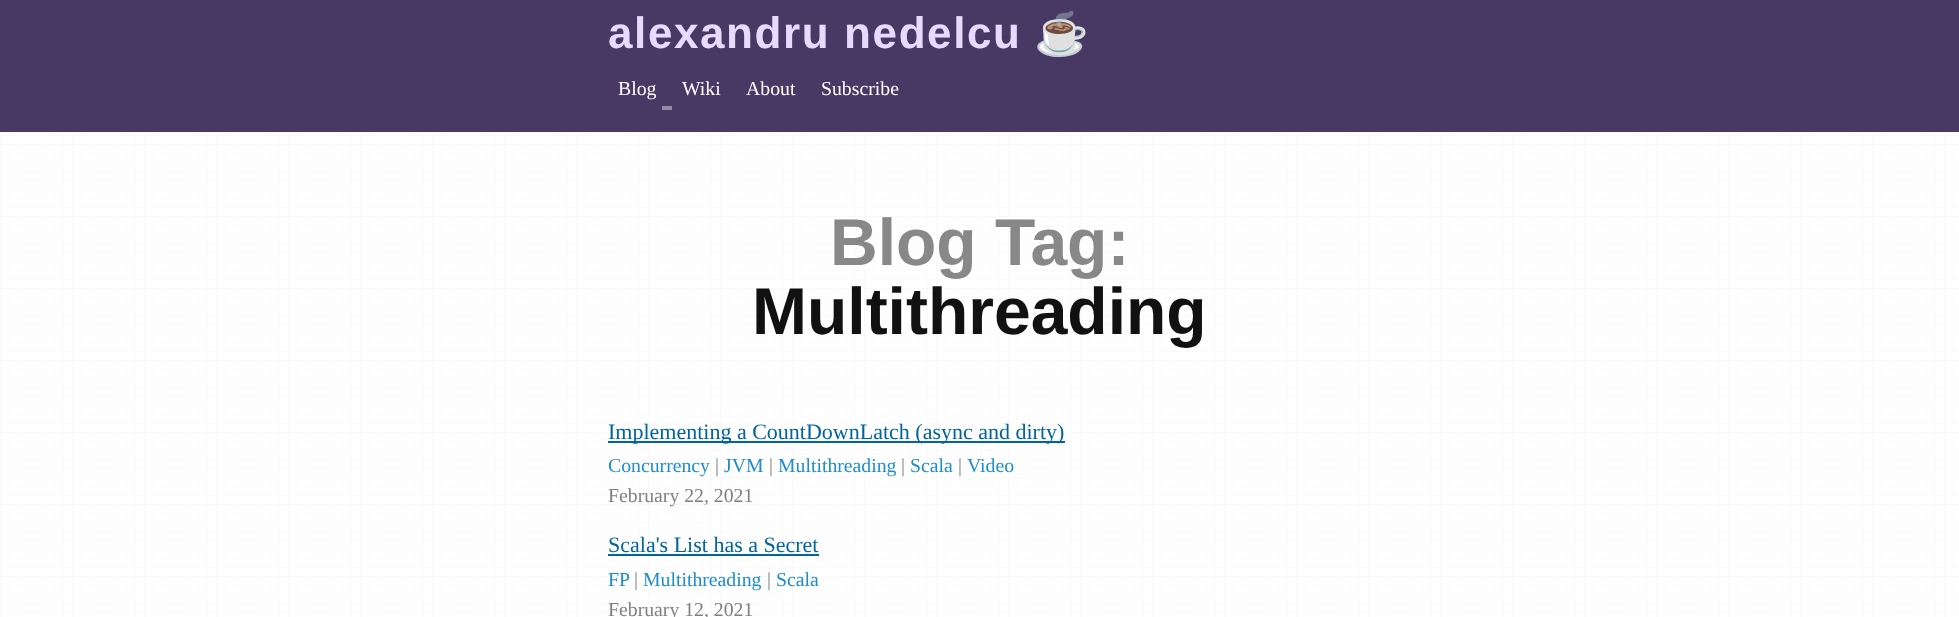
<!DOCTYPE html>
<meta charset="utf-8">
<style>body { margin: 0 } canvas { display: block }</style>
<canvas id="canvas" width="1959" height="617"></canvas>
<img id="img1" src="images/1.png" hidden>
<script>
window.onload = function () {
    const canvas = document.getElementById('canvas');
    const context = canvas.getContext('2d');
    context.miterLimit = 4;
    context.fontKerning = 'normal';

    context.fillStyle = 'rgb(255, 255, 255)';
    context.fillRect(0, 0, 1959, 617);
    context.drawImage(document.getElementById('img1'), 0, 132, 1959, 485);
    context.fillStyle = 'rgb(71, 56, 100)';
    context.fillRect(0, 0, 1959, 132);
    context.fillStyle = 'rgb(145, 136, 162)';
    context.fillRect(662, 106, 10, 4);
    context.fillStyle = 'rgb(0, 100, 158)';
    context.fillRect(608, 441, 457, 2);
    context.fillRect(608, 554, 211, 2);
    context.letterSpacing = '1.6px';
    context.font = 'bold 44px Liberation Sans';
    context.fillStyle = 'rgb(233, 217, 255)';
    context.fillText('alexandru nedelcu', 608, 48);
    context.save();
    context.beginPath();
    context.rect(485, 11, 990, 110);
    context.clip();
    context.font = 'bold 44px Noto Color Emoji';
    context.fillText('☕️', 1034, 48);
    context.restore();
    context.letterSpacing = '0px';
    context.font = '19.75px Liberation Serif';
    context.fillStyle = 'rgb(255, 255, 255)';
    context.fillText('Blog', 618, 95);
    context.fillText('Wiki', 682, 95);
    context.fillText('About', 746, 95);
    context.fillText('Subscribe', 821, 95);
    context.font = 'bold 66px Liberation Sans';
    context.fillStyle = 'rgb(136, 136, 136)';
    context.fillText('Blog Tag:', 830, 265);
    context.fillStyle = 'rgb(17, 17, 17)';
    context.fillText('Multithreading', 752, 334);
    context.font = '22px Liberation Serif';
    context.fillStyle = 'rgb(0, 100, 158)';
    context.fillText('Implementing a CountDownLatch (async and dirty)', 608, 439);
    context.font = '19.75px Liberation Serif';
    context.fillStyle = 'rgb(29, 141, 205)';
    context.fillText('Concurrency', 608, 472);
    context.fillStyle = 'rgb(128, 128, 128)';
    context.fillText('|', 715, 472);
    context.fillStyle = 'rgb(29, 141, 205)';
    context.fillText('JVM', 724, 472);
    context.fillStyle = 'rgb(128, 128, 128)';
    context.fillText('|', 769, 472);
    context.fillStyle = 'rgb(29, 141, 205)';
    context.fillText('Multithreading', 778, 472);
    context.fillStyle = 'rgb(128, 128, 128)';
    context.fillText('|', 901, 472);
    context.fillStyle = 'rgb(29, 141, 205)';
    context.fillText('Scala', 910, 472);
    context.fillStyle = 'rgb(128, 128, 128)';
    context.fillText('|', 958, 472);
    context.fillStyle = 'rgb(29, 141, 205)';
    context.fillText('Video', 967, 472);
    context.fillStyle = 'rgb(128, 128, 128)';
    context.fillText('February 22, 2021', 608, 502);
    context.font = '22px Liberation Serif';
    context.fillStyle = 'rgb(0, 100, 158)';
    context.fillText('Scala\'s List has a Secret', 608, 552);
    context.font = '19.75px Liberation Serif';
    context.fillStyle = 'rgb(29, 141, 205)';
    context.fillText('FP', 608, 586);
    context.fillStyle = 'rgb(128, 128, 128)';
    context.fillText('|', 634, 586);
    context.fillStyle = 'rgb(29, 141, 205)';
    context.fillText('Multithreading', 643, 586);
    context.fillStyle = 'rgb(128, 128, 128)';
    context.fillText('|', 767, 586);
    context.fillStyle = 'rgb(29, 141, 205)';
    context.fillText('Scala', 776, 586);
    context.fillStyle = 'rgb(128, 128, 128)';
    context.fillText('February 12, 2021', 608, 616);
};
</script>
